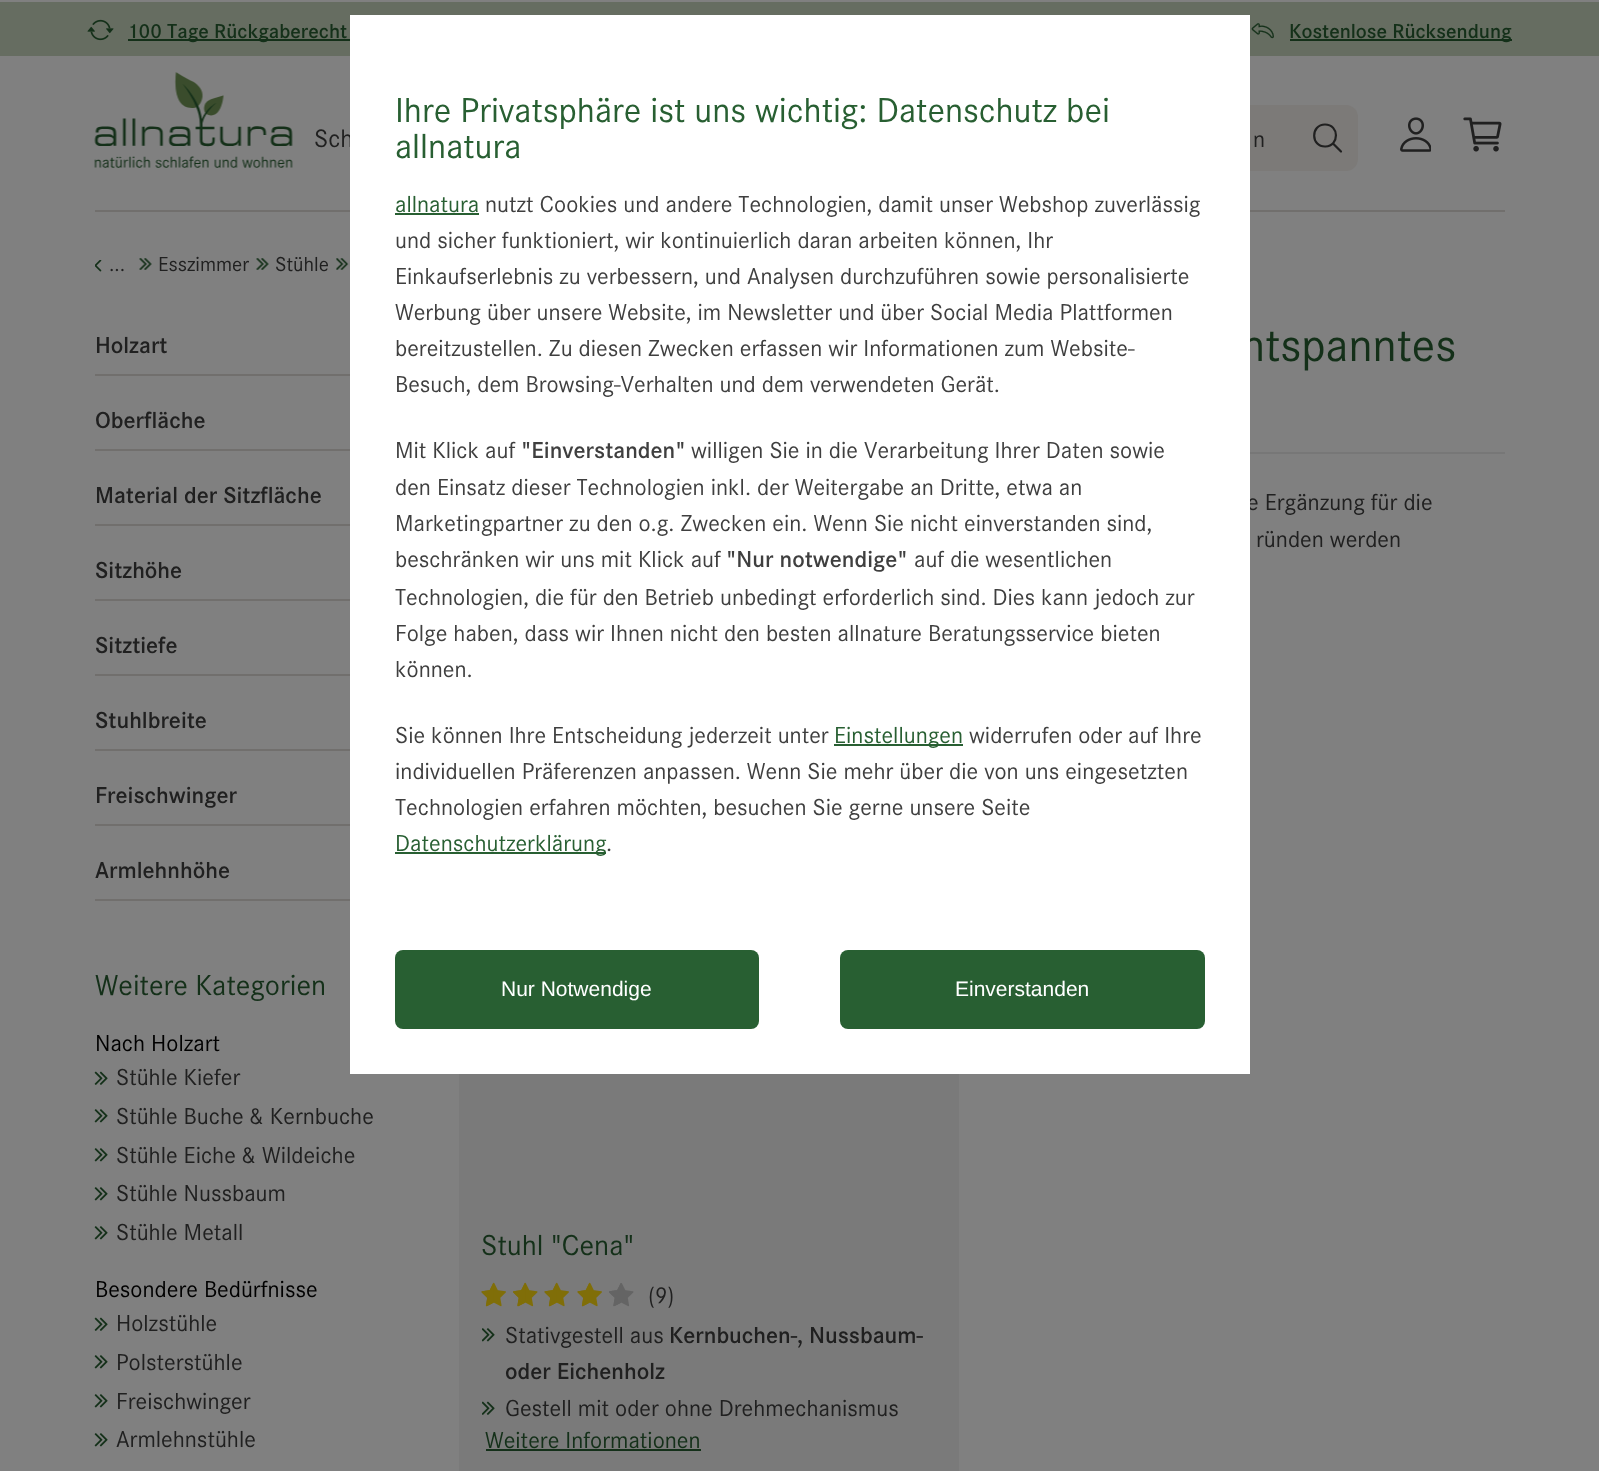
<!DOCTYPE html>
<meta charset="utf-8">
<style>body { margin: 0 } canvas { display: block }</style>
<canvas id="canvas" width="1599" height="1471"></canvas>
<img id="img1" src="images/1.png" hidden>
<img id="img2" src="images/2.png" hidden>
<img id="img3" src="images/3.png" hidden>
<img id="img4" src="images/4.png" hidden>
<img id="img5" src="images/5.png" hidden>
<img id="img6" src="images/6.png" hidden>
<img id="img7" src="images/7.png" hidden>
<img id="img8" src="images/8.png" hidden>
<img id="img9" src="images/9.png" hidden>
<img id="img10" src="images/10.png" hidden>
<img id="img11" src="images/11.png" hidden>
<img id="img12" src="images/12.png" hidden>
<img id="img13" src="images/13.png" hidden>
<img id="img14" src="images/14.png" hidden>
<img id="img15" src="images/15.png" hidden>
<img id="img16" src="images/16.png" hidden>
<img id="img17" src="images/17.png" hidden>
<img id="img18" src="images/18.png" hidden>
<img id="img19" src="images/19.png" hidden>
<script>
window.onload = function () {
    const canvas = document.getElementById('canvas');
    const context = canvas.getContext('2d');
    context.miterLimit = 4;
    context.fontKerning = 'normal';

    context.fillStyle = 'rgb(128, 128, 128)';
    context.fillRect(0, 0, 1599, 1471);
    context.fillStyle = 'rgb(102, 109, 97)';
    context.fillRect(0, 2, 1599, 54);
    context.drawImage(document.getElementById('img1'), 87, 19, 27, 22);
    context.fillStyle = 'rgb(20, 48, 25)';
    context.fillRect(128, 39, 225, 2);
    context.drawImage(document.getElementById('img2'), 1251, 23, 23, 16);
    context.fillRect(1290, 39, 222, 2);
    context.fillStyle = 'rgb(113, 111, 109)';
    context.fillRect(95, 210, 1410, 2);
    context.drawImage(document.getElementById('img3'), 94, 72, 199, 96);
    context.fillStyle = 'rgb(124, 122, 120)';
    context.beginPath();
    context.roundRect(1043, 105, 315, 66, 12);
    context.fill();
    context.beginPath();
    context.moveTo(1325, 124.5);
    context.bezierCurveTo(1310.5, 124.5, 1310.5, 147, 1325.5, 146.5);
    context.bezierCurveTo(1339.5, 146, 1339.5, 124.5, 1325, 124.5);
    context.closePath();
    context.strokeStyle = 'rgb(32, 32, 32)';
    context.lineWidth = 2.2;
    context.stroke();
    context.beginPath();
    context.moveTo(1333.5, 144);
    context.lineTo(1341, 151.5);
    context.lineCap = 'round';
    context.stroke();
    context.drawImage(document.getElementById('img4'), 1400, 117, 31, 35);
    context.drawImage(document.getElementById('img5'), 1463, 117, 39, 35);
    context.drawImage(document.getElementById('img6'), 95, 260, 7, 12);
    context.drawImage(document.getElementById('img7'), 139, 258, 13, 12);
    context.drawImage(document.getElementById('img8'), 256, 258, 13, 12);
    context.drawImage(document.getElementById('img9'), 336, 258, 13, 12);
    context.fillStyle = 'rgb(113, 111, 109)';
    context.fillRect(95, 374, 255, 2);
    context.fillRect(95, 449, 255, 2);
    context.fillRect(95, 524, 255, 2);
    context.fillRect(95, 599, 255, 2);
    context.fillRect(95, 674, 255, 2);
    context.fillRect(95, 749, 255, 2);
    context.fillRect(95, 824, 255, 2);
    context.fillRect(95, 899, 255, 2);
    context.drawImage(document.getElementById('img10'), 94, 1071, 14, 14);
    context.drawImage(document.getElementById('img11'), 94, 1109, 14, 14);
    context.drawImage(document.getElementById('img11'), 94, 1148, 14, 14);
    context.drawImage(document.getElementById('img11'), 94, 1187, 14, 14);
    context.drawImage(document.getElementById('img11'), 94, 1226, 14, 14);
    context.drawImage(document.getElementById('img10'), 94, 1317, 14, 14);
    context.drawImage(document.getElementById('img11'), 94, 1355, 14, 14);
    context.drawImage(document.getElementById('img11'), 94, 1394, 14, 14);
    context.drawImage(document.getElementById('img11'), 94, 1433, 14, 14);
    context.fillStyle = 'rgb(119, 119, 119)';
    context.fillRect(1250, 452, 255, 2);
    context.fillStyle = 'rgb(122, 122, 122)';
    context.fillRect(459, 1074, 500, 397);
    context.drawImage(document.getElementById('img12'), 481, 1282, 25, 25);
    context.drawImage(document.getElementById('img13'), 481, 1282, 13, 25);
    context.drawImage(document.getElementById('img14'), 513, 1282, 25, 25);
    context.drawImage(document.getElementById('img15'), 513, 1282, 13, 25);
    context.drawImage(document.getElementById('img12'), 544, 1282, 25, 25);
    context.drawImage(document.getElementById('img13'), 544, 1282, 13, 25);
    context.drawImage(document.getElementById('img12'), 577, 1282, 25, 25);
    context.drawImage(document.getElementById('img13'), 577, 1282, 13, 25);
    context.drawImage(document.getElementById('img16'), 609, 1283, 25, 24);
    context.drawImage(document.getElementById('img17'), 609, 1283, 12, 23);
    context.drawImage(document.getElementById('img18'), 482, 1328, 13, 14);
    context.drawImage(document.getElementById('img19'), 482, 1401, 13, 14);
    context.fillStyle = 'rgb(20, 48, 25)';
    context.fillRect(486, 1449, 215, 2);
    context.font = '21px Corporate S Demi';
    context.fillText('100 Tage Rückgaberecht', 127, 38);
    context.fillText('Kostenlose Rücksendung', 1289, 38);
    context.font = '26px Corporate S';
    context.fillStyle = 'rgb(32, 32, 32)';
    context.fillText('Sch', 314, 147);
    context.font = '24px Corporate S';
    context.fillText('n', 1253, 147);
    context.font = '21px Corporate S';
    context.fillText('...', 109, 271);
    context.fillText('Esszimmer', 158, 271);
    context.fillText('Stühle', 275, 271);
    context.font = '24px Corporate S Demi';
    context.fillText('Holzart', 95, 353);
    context.fillText('Oberfläche', 95, 428);
    context.fillText('Material der Sitzfläche', 95, 503);
    context.fillText('Sitzhöhe', 95, 578);
    context.fillText('Sitztiefe', 95, 653);
    context.fillText('Stuhlbreite', 95, 728);
    context.fillText('Freischwinger', 95, 803);
    context.fillText('Armlehnhöhe', 95, 878);
    context.font = '30px Corporate S';
    context.fillStyle = 'rgb(20, 48, 25)';
    context.fillText('Weitere Kategorien', 95, 995);
    context.font = '24px Corporate S';
    context.fillStyle = 'rgb(0, 0, 0)';
    context.fillText('Nach Holzart', 95, 1051);
    context.fillStyle = 'rgb(32, 32, 32)';
    context.fillText('Stühle Kiefer', 116, 1085);
    context.fillText('Stühle Buche & Kernbuche', 116, 1124);
    context.fillText('Stühle Eiche & Wildeiche', 116, 1163);
    context.fillText('Stühle Nussbaum', 116, 1201);
    context.fillText('Stühle Metall', 116, 1240);
    context.fillStyle = 'rgb(0, 0, 0)';
    context.fillText('Besondere Bedürfnisse', 95, 1297);
    context.fillStyle = 'rgb(32, 32, 32)';
    context.fillText('Holzstühle', 116, 1331);
    context.fillText('Polsterstühle', 116, 1370);
    context.fillText('Freischwinger', 116, 1409);
    context.fillText('Armlehnstühle', 116, 1447);
    context.font = '48px Corporate S';
    context.fillStyle = 'rgb(20, 48, 25)';
    context.fillText('ntspanntes', 1241, 361);
    context.font = '24px Corporate S';
    context.fillStyle = 'rgb(32, 32, 32)';
    context.fillText('e Ergänzung für die', 1247, 510);
    context.fillText('ründen werden', 1256, 547);
    context.font = '30px Corporate S';
    context.fillStyle = 'rgb(20, 48, 25)';
    context.fillText('Stuhl "Cena"', 481, 1255);
    context.font = '24px Corporate S';
    context.fillStyle = 'rgb(32, 32, 32)';
    context.fillText('(9)', 648, 1303);
    context.fillText('Stativgestell aus', 505, 1343);
    context.font = '24px Corporate S Demi';
    context.fillText('Kernbuchen-, Nussbaum-', 669, 1343);
    context.fillText('oder Eichenholz', 505, 1379);
    context.font = '24px Corporate S';
    context.fillText('Gestell mit oder ohne Drehmechanismus', 505, 1416);
    context.fillStyle = 'rgb(20, 48, 25)';
    context.fillText('Weitere Informationen', 485, 1448);
    context.fillStyle = 'rgb(255, 255, 255)';
    context.fillRect(350, 15, 900, 1059);
    context.font = '36px Corporate S';
    context.fillStyle = 'rgb(40, 95, 50)';
    context.fillText('Ihre Privatsphäre ist uns wichtig: Datenschutz bei', 395, 122);
    context.fillText('allnatura', 395, 158);
    context.font = '24px Corporate S';
    context.fillText('allnatura', 395, 212);
    context.fillRect(395, 213, 84, 2);
    context.fillStyle = 'rgb(63, 63, 63)';
    context.fillText('nutzt Cookies und andere Technologien, damit unser Webshop zuverlässig', 485, 212);
    context.fillText('und sicher funktioniert, wir kontinuierlich daran arbeiten können, Ihr', 395, 248);
    context.fillText('Einkaufserlebnis zu verbessern, und Analysen durchzuführen sowie personalisierte', 395, 284);
    context.fillText('Werbung über unsere Website, im Newsletter und über Social Media Plattformen', 395, 320);
    context.fillText('bereitzustellen. Zu diesen Zwecken erfassen wir Informationen zum Website-', 395, 356);
    context.fillText('Besuch, dem Browsing-Verhalten und dem verwendeten Gerät.', 395, 392);
    context.fillText('Mit Klick auf', 395, 458);
    context.font = '24px Corporate S Demi';
    context.fillText('"Einverstanden"', 521, 458);
    context.font = '24px Corporate S';
    context.fillText('willigen Sie in die Verarbeitung Ihrer Daten sowie', 691, 458);
    context.fillText('den Einsatz dieser Technologien inkl. der Weitergabe an Dritte, etwa an', 395, 495);
    context.fillText('Marketingpartner zu den o.g. Zwecken ein. Wenn Sie nicht einverstanden sind,', 395, 531);
    context.fillText('beschränken wir uns mit Klick auf', 395, 567);
    context.font = '24px Corporate S Demi';
    context.fillText('"Nur notwendige"', 726, 567);
    context.font = '24px Corporate S';
    context.fillText('auf die wesentlichen', 914, 567);
    context.fillText('Technologien, die für den Betrieb unbedingt erforderlich sind. Dies kann jedoch zur', 395, 605);
    context.fillText('Folge haben, dass wir Ihnen nicht den besten allnature Beratungsservice bieten', 395, 641);
    context.fillText('können.', 395, 677);
    context.fillText('Sie können Ihre Entscheidung jederzeit unter', 395, 743);
    context.fillStyle = 'rgb(40, 95, 50)';
    context.fillRect(834, 744, 129, 2);
    context.fillText('Einstellungen', 834, 743);
    context.fillStyle = 'rgb(63, 63, 63)';
    context.fillText('widerrufen oder auf Ihre', 969, 743);
    context.fillText('individuellen Präferenzen anpassen. Wenn Sie mehr über die von uns eingesetzten', 395, 779);
    context.fillText('Technologien erfahren möchten, besuchen Sie gerne unsere Seite', 395, 815);
    context.fillStyle = 'rgb(40, 95, 50)';
    context.fillRect(395, 852, 211, 2);
    context.fillText('Datenschutzerklärung', 395, 851);
    context.fillStyle = 'rgb(63, 63, 63)';
    context.fillText('.', 606, 851);
    context.fillStyle = 'rgb(40, 95, 50)';
    context.beginPath();
    context.roundRect(395, 950, 364, 79, 8);
    context.fill();
    context.font = '21px Liberation Sans';
    context.fillStyle = 'rgb(255, 255, 255)';
    context.fillText('Nur Notwendige', 501, 996);
    context.fillStyle = 'rgb(40, 95, 50)';
    context.beginPath();
    context.roundRect(840, 950, 365, 79, 8);
    context.fill();
    context.fillStyle = 'rgb(255, 255, 255)';
    context.fillText('Einverstanden', 955, 996);
};
</script>
